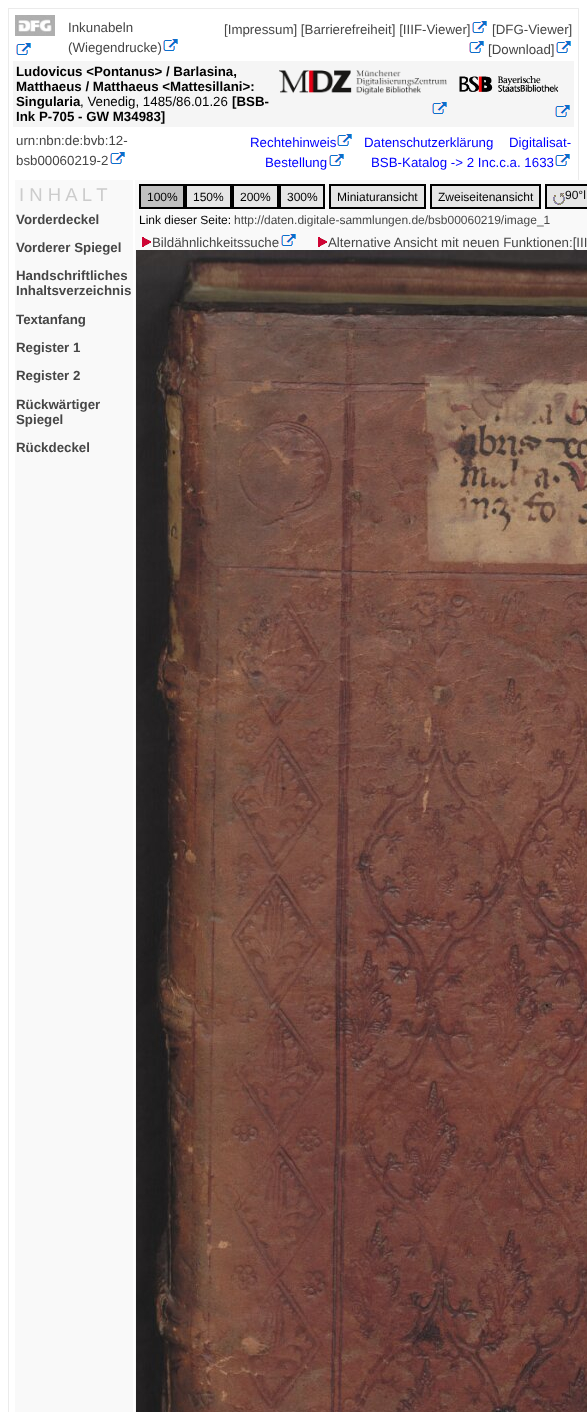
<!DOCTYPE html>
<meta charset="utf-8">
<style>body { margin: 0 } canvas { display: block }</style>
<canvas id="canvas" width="587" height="1412"></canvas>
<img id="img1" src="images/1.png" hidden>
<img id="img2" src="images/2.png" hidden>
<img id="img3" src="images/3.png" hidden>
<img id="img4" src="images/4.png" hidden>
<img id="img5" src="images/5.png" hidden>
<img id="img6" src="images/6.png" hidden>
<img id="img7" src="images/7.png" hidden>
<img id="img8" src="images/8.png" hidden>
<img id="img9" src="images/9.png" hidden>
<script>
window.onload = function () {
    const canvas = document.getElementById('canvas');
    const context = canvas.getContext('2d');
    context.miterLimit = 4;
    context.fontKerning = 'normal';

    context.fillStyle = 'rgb(255, 255, 255)';
    context.fillRect(0, 0, 587, 1412);
    context.strokeStyle = 'rgb(235, 235, 235)';
    context.strokeRect(8.5, 8.5, 570, 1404);
    context.drawImage(document.getElementById('img1'), 15, 15, 40, 21);
    context.drawImage(document.getElementById('img2'), 16, 43, 15, 12);
    context.drawImage(document.getElementById('img2'), 163, 39, 15, 12);
    context.drawImage(document.getElementById('img2'), 472, 21, 15, 12);
    context.drawImage(document.getElementById('img2'), 469, 41, 15, 12);
    context.drawImage(document.getElementById('img2'), 556, 41, 15, 12);
    context.fillStyle = 'rgb(245, 245, 245)';
    context.fillRect(13, 61, 561, 66);
    context.drawImage(document.getElementById('img3'), 279, 70, 168, 25);
    context.drawImage(document.getElementById('img4'), 432, 102, 15, 12);
    context.drawImage(document.getElementById('img5'), 459, 76, 100, 16);
    context.drawImage(document.getElementById('img4'), 555, 105, 15, 12);
    context.drawImage(document.getElementById('img2'), 110, 152, 15, 12);
    context.drawImage(document.getElementById('img2'), 337, 134, 15, 12);
    context.drawImage(document.getElementById('img2'), 329, 154, 15, 12);
    context.drawImage(document.getElementById('img2'), 555, 154, 15, 12);
    context.fillStyle = 'rgb(249, 249, 249)';
    context.fillRect(15, 180, 118, 1232);
    context.fillRect(135, 180, 452, 1232);
    context.fillStyle = 'rgb(193, 193, 193)';
    context.beginPath();
    context.rect(140, 185, 44, 23);
    context.fill();
    context.strokeStyle = 'rgb(0, 0, 0)';
    context.lineWidth = 2;
    context.stroke();
    context.fillStyle = 'rgb(230, 230, 230)';
    context.beginPath();
    context.rect(186, 185, 45, 23);
    context.fill();
    context.stroke();
    context.beginPath();
    context.rect(233, 185, 45, 23);
    context.fill();
    context.stroke();
    context.beginPath();
    context.rect(280, 185, 44, 23);
    context.fill();
    context.stroke();
    context.beginPath();
    context.rect(330, 185, 95, 23);
    context.fill();
    context.stroke();
    context.beginPath();
    context.rect(431, 185, 109, 23);
    context.fill();
    context.stroke();
    context.beginPath();
    context.rect(546, 185, 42, 23);
    context.fill();
    context.stroke();
    context.drawImage(document.getElementById('img6'), 553, 193, 12, 12);
    context.drawImage(document.getElementById('img7'), 142, 237, 9, 10);
    context.drawImage(document.getElementById('img8'), 281, 234, 15, 12);
    context.drawImage(document.getElementById('img7'), 318, 237, 9, 10);
    context.drawImage(document.getElementById('img9'), 136, 250, 451, 1162);
    context.font = '13.3px Liberation Sans';
    context.fillStyle = 'rgb(70, 70, 70)';
    context.fillText('Inkunabeln', 68, 32);
    context.fillText('(Wiegendrucke)', 68, 52);
    context.fillText('[Impressum] [Barrierefreiheit] [IIIF-Viewer]', 224, 34);
    context.fillText('[DFG-Viewer]', 492, 34);
    context.fillText('[Download]', 488, 54);
    context.font = 'bold 13.3px Liberation Sans';
    context.fillStyle = 'rgb(0, 0, 0)';
    context.fillText('Ludovicus <Pontanus> / Barlasina,', 16, 76);
    context.fillText('Matthaeus / Matthaeus <Mattesillani>:', 16, 91);
    context.fillText('Singularia', 16, 106);
    context.font = '13.3px Liberation Sans';
    context.fillText(', Venedig, 1485/86.01.26', 80, 106);
    context.font = 'bold 13.3px Liberation Sans';
    context.fillText('[BSB-', 232, 106);
    context.fillText('Ink P-705 - GW M34983]', 16, 121);
    context.font = '13.3px Liberation Sans';
    context.fillStyle = 'rgb(70, 70, 70)';
    context.fillText('urn:nbn:de:bvb:12-', 16, 145);
    context.fillText('bsb00060219-2', 16, 165);
    context.fillStyle = 'rgb(0, 0, 255)';
    context.fillText('Rechtehinweis', 250, 147);
    context.fillText('Datenschutzerklärung', 364, 147);
    context.fillText('Digitalisat-', 509, 147);
    context.fillText('Bestellung', 265, 167);
    context.fillText('BSB-Katalog -> 2 Inc.c.a. 1633', 371, 167);
    context.font = '18.5px Liberation Sans';
    context.fillStyle = 'rgb(204, 204, 204)';
    context.fillText('I N H A L T', 19, 201);
    context.font = 'bold 13.3px Liberation Sans';
    context.fillStyle = 'rgb(70, 70, 70)';
    context.fillText('Vorderdeckel', 16, 224);
    context.fillText('Vorderer Spiegel', 16, 252);
    context.fillText('Handschriftliches', 16, 280);
    context.fillText('Inhaltsverzeichnis', 16, 295);
    context.fillText('Textanfang', 16, 324);
    context.fillText('Register 1', 16, 352);
    context.fillText('Register 2', 16, 380);
    context.fillText('Rückwärtiger', 16, 409);
    context.fillText('Spiegel', 16, 424);
    context.fillText('Rückdeckel', 16, 452);
    context.font = '12px Liberation Sans';
    context.fillStyle = 'rgb(0, 0, 0)';
    context.fillText('100%', 147, 201);
    context.fillText('150%', 193, 201);
    context.fillText('200%', 240, 201);
    context.fillText('300%', 287, 201);
    context.fillText('Miniaturansicht', 337, 201);
    context.fillText('Zweiseitenansicht', 438, 201);
    context.fillText('90°l', 565, 199);
    context.fillText('Link dieser Seite:', 139, 224);
    context.fillStyle = 'rgb(70, 70, 70)';
    context.fillText('http://daten.digitale-sammlungen.de/bsb00060219/image_1', 234, 224);
    context.font = '13.3px Liberation Sans';
    context.fillText('Bildähnlichkeitssuche', 152, 247);
    context.fillText('Alternative Ansicht mit neuen Funktionen:[III', 328, 247);
};
</script>
